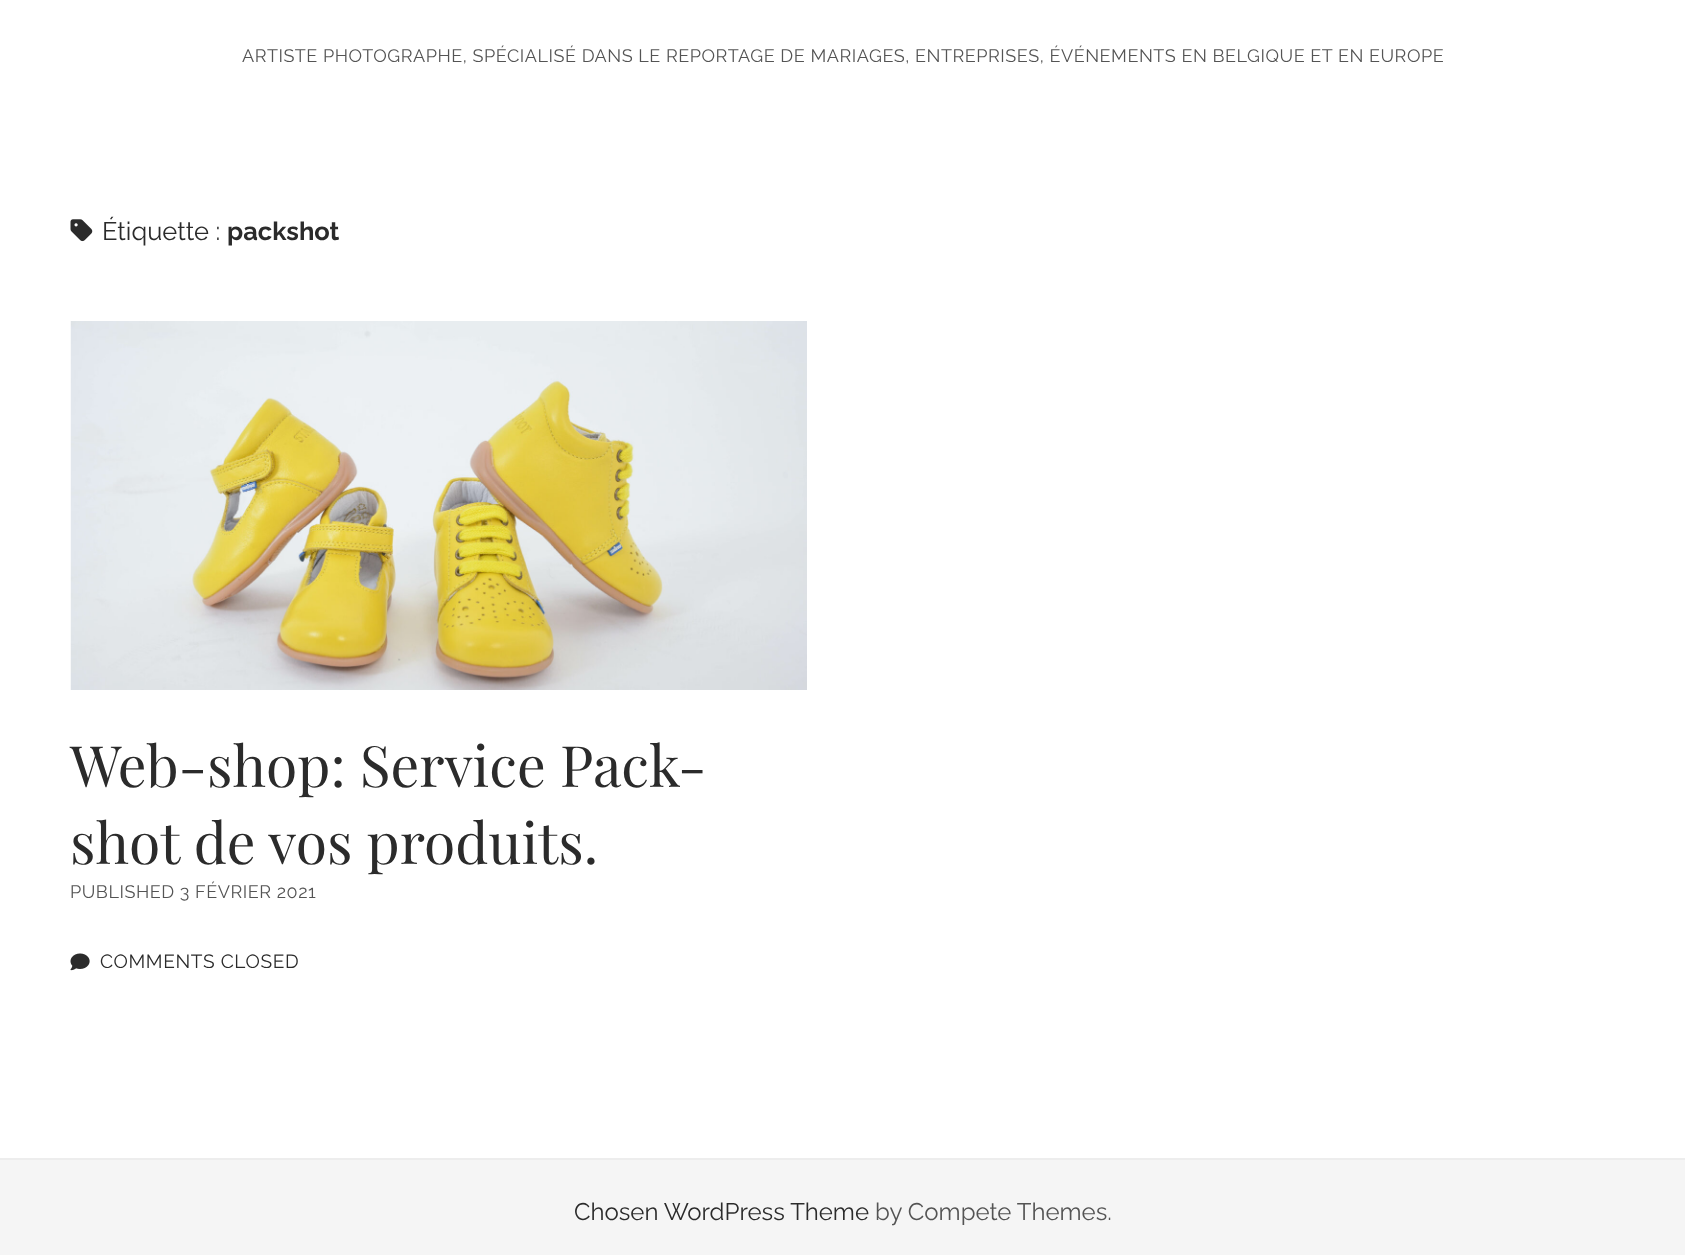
<!DOCTYPE html>
<meta charset="utf-8">
<style>body { margin: 0 } canvas { display: block }</style>
<canvas id="canvas" width="1685" height="1255"></canvas>
<img id="img1" src="images/1.png" hidden>
<img id="img2" src="images/2.png" hidden>
<img id="img3" src="images/3.png" hidden>
<script>
window.onload = function () {
    const canvas = document.getElementById('canvas');
    const context = canvas.getContext('2d');
    context.miterLimit = 4;
    context.fontKerning = 'normal';

    context.fillStyle = 'rgb(255, 255, 255)';
    context.fillRect(0, 0, 1685, 1255);
    context.drawImage(document.getElementById('img1'), 70, 219, 23, 23);
    context.drawImage(document.getElementById('img2'), 70, 321, 737, 369);
    context.drawImage(document.getElementById('img3'), 70, 953, 20, 18);
    context.fillStyle = 'rgb(245, 245, 245)';
    context.fillRect(0, 1160, 1685, 95);
    context.fillStyle = 'rgb(237, 237, 237)';
    context.fillRect(0, 1158, 1685, 2);
    context.letterSpacing = '0.54px';
    context.font = '18px Raleway';
    context.fillStyle = 'rgb(84, 84, 84)';
    context.fillText('ARTISTE PHOTOGRAPHE, SPÉCIALISÉ DANS LE REPORTAGE DE MARIAGES, ENTREPRISES, ÉVÉNEMENTS EN BELGIQUE ET EN EUROPE', 242, 62);
    context.letterSpacing = '0px';
    context.font = '25.5px Raleway';
    context.fillStyle = 'rgb(43, 43, 43)';
    context.fillText('Étiquette :', 102, 240);
    context.font = 'bold 25.5px Raleway';
    context.fillText('packshot', 227, 240);
    context.font = '57px Playfair Display';
    context.fillText('Web-shop: Service Pack-', 70, 787);
    context.fillText('shot de vos produits.', 70, 864);
    context.letterSpacing = '0.54px';
    context.font = '18px Raleway';
    context.fillStyle = 'rgb(84, 84, 84)';
    context.fillText('PUBLISHED 3 FÉVRIER 2021', 70, 898);
    context.letterSpacing = '0.6px';
    context.font = '19.1px Raleway';
    context.fillStyle = 'rgb(43, 43, 43)';
    context.fillText('COMMENTS CLOSED', 100, 968);
    context.letterSpacing = '0px';
    context.font = '24px Raleway';
    context.fillText('Chosen WordPress Theme', 574, 1220);
    context.fillStyle = 'rgb(84, 84, 84)';
    context.fillText('by Compete Themes.', 875, 1220);
};
</script>
